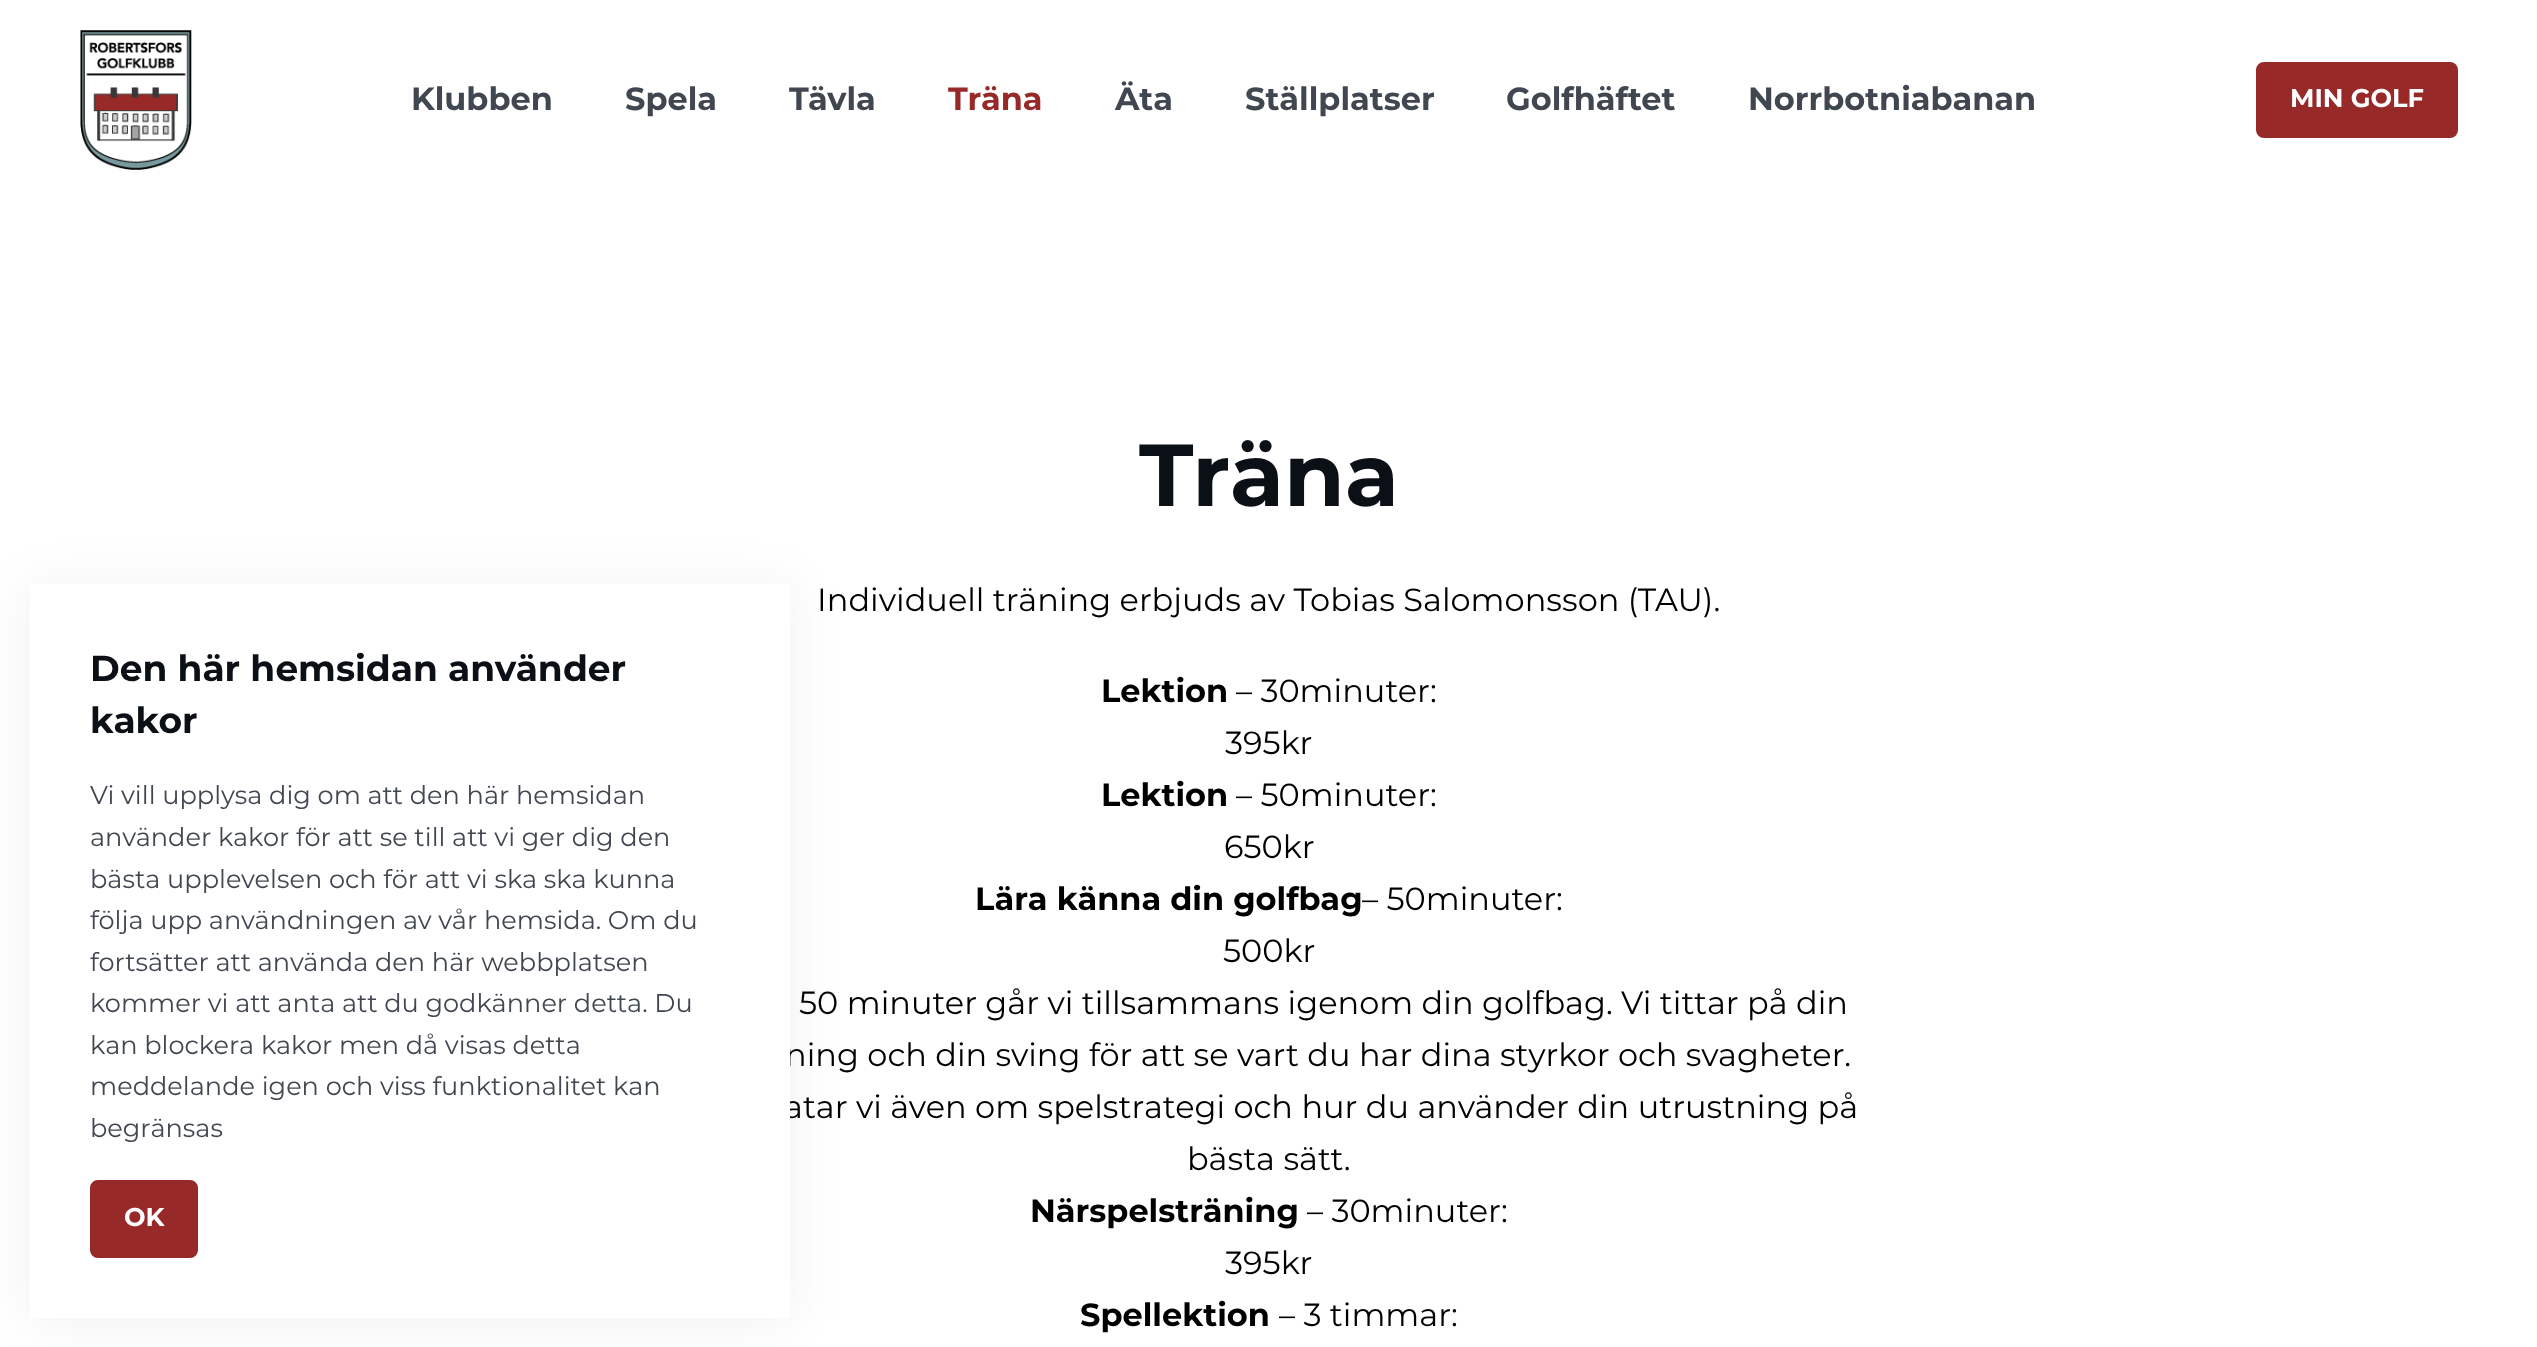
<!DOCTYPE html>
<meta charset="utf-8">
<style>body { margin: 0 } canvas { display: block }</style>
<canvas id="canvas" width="2537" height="1347"></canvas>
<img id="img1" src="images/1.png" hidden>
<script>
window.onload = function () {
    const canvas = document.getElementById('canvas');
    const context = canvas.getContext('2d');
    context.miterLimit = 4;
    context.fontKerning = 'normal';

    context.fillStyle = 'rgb(255, 255, 255)';
    context.fillRect(0, 0, 2537, 1347);
    context.fillStyle = 'rgba(0, 0, 0, 0.06)';
    context.filter = 'blur(26px)';
    context.beginPath();
    context.rect(30, 586, 760, 734);
    context.fill();
    context.filter = 'none';
    context.drawImage(document.getElementById('img1'), 80, 30, 112, 140);
    context.fillStyle = 'rgb(152, 41, 41)';
    context.beginPath();
    context.roundRect(2257, 63, 200, 74, 7);
    context.fill();
    context.strokeStyle = 'rgb(152, 41, 41)';
    context.lineWidth = 2;
    context.stroke();
    context.font = 'bold 32px Montserrat';
    context.fillStyle = 'rgb(65, 71, 81)';
    context.fillText('Klubben', 411, 110);
    context.fillText('Spela', 625, 110);
    context.fillText('Tävla', 789, 110);
    context.fillStyle = 'rgb(152, 41, 41)';
    context.fillText('Träna', 948, 110);
    context.fillStyle = 'rgb(65, 71, 81)';
    context.fillText('Äta', 1115, 110);
    context.fillText('Ställplatser', 1245, 110);
    context.fillText('Golfhäftet', 1506, 110);
    context.fillText('Norrbotniabanan', 1748, 110);
    context.font = 'bold 25.6px Montserrat';
    context.fillStyle = 'rgb(255, 255, 255)';
    context.fillText('MIN GOLF', 2290, 107);
    context.font = 'bold 88px Montserrat';
    context.fillStyle = 'rgb(11, 16, 22)';
    context.fillText('Träna', 1139, 506);
    context.font = '32px Montserrat';
    context.fillStyle = 'rgb(0, 0, 0)';
    context.fillText('Individuell träning erbjuds av Tobias Salomonsson (TAU).', 817, 611);
    context.font = 'bold 32px Montserrat';
    context.fillText('Lektion', 1101, 702);
    context.font = '32px Montserrat';
    context.fillText('– 30minuter:', 1236, 702);
    context.fillText('395kr', 1225, 754);
    context.font = 'bold 32px Montserrat';
    context.fillText('Lektion', 1101, 806);
    context.font = '32px Montserrat';
    context.fillText('– 50minuter:', 1236, 806);
    context.fillText('650kr', 1224, 858);
    context.font = 'bold 32px Montserrat';
    context.fillText('Lära känna din golfbag', 975, 910);
    context.font = '32px Montserrat';
    context.fillText('– 50minuter:', 1362, 910);
    context.fillText('500kr', 1223, 962);
    context.fillText('50 minuter går vi tillsammans igenom din golfbag. Vi tittar på din', 799, 1014);
    context.fillText('ning och din sving för att se vart du har dina styrkor och svagheter.', 785, 1066);
    context.fillText('atar vi även om spelstrategi och hur du använder din utrustning på', 784, 1118);
    context.fillStyle = 'rgb(255, 255, 255)';
    context.fillRect(30, 584, 760, 734);
    context.fillStyle = 'rgb(152, 41, 41)';
    context.beginPath();
    context.roundRect(91, 1181, 106, 76, 7);
    context.fill();
    context.stroke();
    context.font = 'bold 25.6px Montserrat';
    context.fillStyle = 'rgb(255, 255, 255)';
    context.fillText('OK', 124, 1226);
    context.font = '25.6px Montserrat';
    context.fillStyle = 'rgb(65, 71, 81)';
    context.fillText('begränsas', 90, 1137);
    context.fillText('meddelande igen och viss funktionalitet kan', 90, 1095);
    context.fillText('kan blockera kakor men då visas detta', 90, 1054);
    context.fillText('kommer vi att anta att du godkänner detta. Du', 90, 1012);
    context.fillText('fortsätter att använda den här webbplatsen', 90, 971);
    context.fillText('följa upp användningen av vår hemsida. Om du', 90, 929);
    context.fillText('bästa upplevelsen och för att vi ska ska kunna', 90, 888);
    context.fillText('använder kakor för att se till att vi ger dig den', 90, 846);
    context.fillText('Vi vill upplysa dig om att den här hemsidan', 90, 804);
    context.font = 'bold 36px Montserrat';
    context.fillStyle = 'rgb(11, 16, 22)';
    context.fillText('kakor', 90, 733);
    context.fillText('Den här hemsidan använder', 90, 681);
    context.font = '32px Montserrat';
    context.fillStyle = 'rgb(0, 0, 0)';
    context.fillText('bästa sätt.', 1187, 1170);
    context.font = 'bold 32px Montserrat';
    context.fillText('Närspelsträning', 1030, 1222);
    context.font = '32px Montserrat';
    context.fillText('– 30minuter:', 1307, 1222);
    context.fillText('395kr', 1225, 1274);
    context.font = 'bold 32px Montserrat';
    context.fillText('Spellektion', 1080, 1326);
    context.font = '32px Montserrat';
    context.fillText('– 3 timmar:', 1279, 1326);
};
</script>
